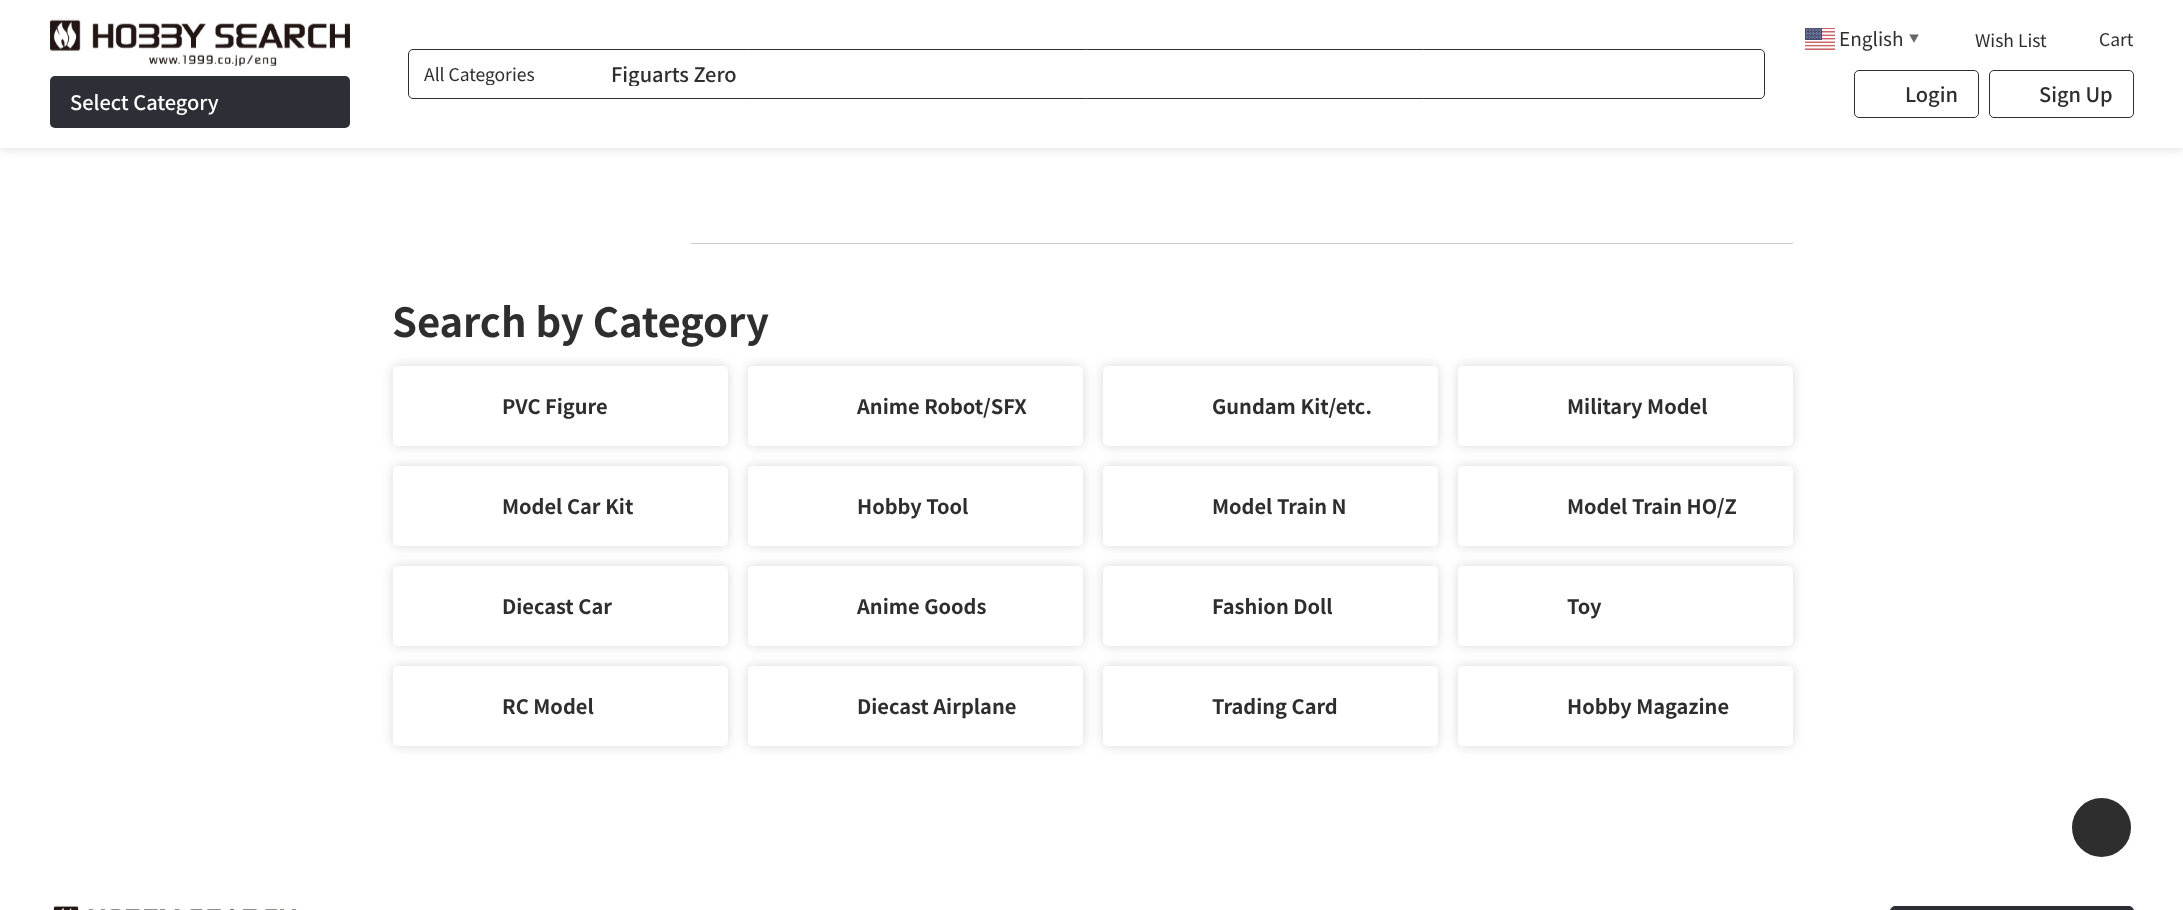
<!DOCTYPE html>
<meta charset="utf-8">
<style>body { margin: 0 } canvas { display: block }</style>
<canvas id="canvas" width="2183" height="910"></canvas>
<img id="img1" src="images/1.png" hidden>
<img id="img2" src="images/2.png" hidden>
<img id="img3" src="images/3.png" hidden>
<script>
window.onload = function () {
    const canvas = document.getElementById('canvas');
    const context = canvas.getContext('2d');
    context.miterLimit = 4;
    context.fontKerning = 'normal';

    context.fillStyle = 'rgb(255, 255, 255)';
    context.fillRect(0, 0, 2183, 910);
    context.fillStyle = 'rgba(0, 0, 0, 0.15)';
    context.filter = 'blur(6px)';
    context.beginPath();
    context.rect(0, 0, 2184, 148);
    context.fill();
    context.filter = 'none';
    context.fillStyle = 'rgb(255, 255, 255)';
    context.fillRect(0, 0, 2183, 148);
    context.beginPath();
    context.roundRect(408.5, 49.5, 1356, 49, 4.5);
    context.strokeStyle = 'rgb(46, 46, 46)';
    context.stroke();
    context.drawImage(document.getElementById('img1'), 1805, 28, 30, 22);
    context.beginPath();
    context.roundRect(1854.5, 70.5, 124, 47, 4.5);
    context.strokeStyle = 'rgb(45, 47, 54)';
    context.stroke();
    context.beginPath();
    context.roundRect(1989.5, 70.5, 144, 47, 4.5);
    context.stroke();
    context.drawImage(document.getElementById('img2'), 50, 19, 300, 47);
    context.fillStyle = 'rgb(45, 47, 54)';
    context.beginPath();
    context.roundRect(50, 76, 300, 52, 5);
    context.fill();
    context.fillStyle = 'rgb(204, 204, 204)';
    context.fillRect(691, 243, 1102, 1);
    context.fillStyle = 'rgba(0, 0, 0, 0.15)';
    context.filter = 'blur(6px)';
    context.beginPath();
    context.roundRect(393, 366, 335, 80, 5);
    context.fill();
    context.filter = 'none';
    context.fillStyle = 'rgb(255, 255, 255)';
    context.beginPath();
    context.roundRect(393, 366, 335, 80, 5);
    context.fill();
    context.fillStyle = 'rgba(0, 0, 0, 0.15)';
    context.filter = 'blur(6px)';
    context.beginPath();
    context.roundRect(748, 366, 335, 80, 5);
    context.fill();
    context.filter = 'none';
    context.fillStyle = 'rgb(255, 255, 255)';
    context.beginPath();
    context.roundRect(748, 366, 335, 80, 5);
    context.fill();
    context.fillStyle = 'rgba(0, 0, 0, 0.15)';
    context.filter = 'blur(6px)';
    context.beginPath();
    context.roundRect(1103, 366, 335, 80, 5);
    context.fill();
    context.filter = 'none';
    context.fillStyle = 'rgb(255, 255, 255)';
    context.beginPath();
    context.roundRect(1103, 366, 335, 80, 5);
    context.fill();
    context.fillStyle = 'rgba(0, 0, 0, 0.15)';
    context.filter = 'blur(6px)';
    context.beginPath();
    context.roundRect(1458, 366, 335, 80, 5);
    context.fill();
    context.filter = 'none';
    context.fillStyle = 'rgb(255, 255, 255)';
    context.beginPath();
    context.roundRect(1458, 366, 335, 80, 5);
    context.fill();
    context.fillStyle = 'rgba(0, 0, 0, 0.15)';
    context.filter = 'blur(6px)';
    context.beginPath();
    context.roundRect(393, 466, 335, 80, 5);
    context.fill();
    context.filter = 'none';
    context.fillStyle = 'rgb(255, 255, 255)';
    context.beginPath();
    context.roundRect(393, 466, 335, 80, 5);
    context.fill();
    context.fillStyle = 'rgba(0, 0, 0, 0.15)';
    context.filter = 'blur(6px)';
    context.beginPath();
    context.roundRect(748, 466, 335, 80, 5);
    context.fill();
    context.filter = 'none';
    context.fillStyle = 'rgb(255, 255, 255)';
    context.beginPath();
    context.roundRect(748, 466, 335, 80, 5);
    context.fill();
    context.fillStyle = 'rgba(0, 0, 0, 0.15)';
    context.filter = 'blur(6px)';
    context.beginPath();
    context.roundRect(1103, 466, 335, 80, 5);
    context.fill();
    context.filter = 'none';
    context.fillStyle = 'rgb(255, 255, 255)';
    context.beginPath();
    context.roundRect(1103, 466, 335, 80, 5);
    context.fill();
    context.fillStyle = 'rgba(0, 0, 0, 0.15)';
    context.filter = 'blur(6px)';
    context.beginPath();
    context.roundRect(1458, 466, 335, 80, 5);
    context.fill();
    context.filter = 'none';
    context.fillStyle = 'rgb(255, 255, 255)';
    context.beginPath();
    context.roundRect(1458, 466, 335, 80, 5);
    context.fill();
    context.fillStyle = 'rgba(0, 0, 0, 0.15)';
    context.filter = 'blur(6px)';
    context.beginPath();
    context.roundRect(393, 566, 335, 80, 5);
    context.fill();
    context.filter = 'none';
    context.fillStyle = 'rgb(255, 255, 255)';
    context.beginPath();
    context.roundRect(393, 566, 335, 80, 5);
    context.fill();
    context.fillStyle = 'rgba(0, 0, 0, 0.15)';
    context.filter = 'blur(6px)';
    context.beginPath();
    context.roundRect(748, 566, 335, 80, 5);
    context.fill();
    context.filter = 'none';
    context.fillStyle = 'rgb(255, 255, 255)';
    context.beginPath();
    context.roundRect(748, 566, 335, 80, 5);
    context.fill();
    context.fillStyle = 'rgba(0, 0, 0, 0.15)';
    context.filter = 'blur(6px)';
    context.beginPath();
    context.roundRect(1103, 566, 335, 80, 5);
    context.fill();
    context.filter = 'none';
    context.fillStyle = 'rgb(255, 255, 255)';
    context.beginPath();
    context.roundRect(1103, 566, 335, 80, 5);
    context.fill();
    context.fillStyle = 'rgba(0, 0, 0, 0.15)';
    context.filter = 'blur(6px)';
    context.beginPath();
    context.roundRect(1458, 566, 335, 80, 5);
    context.fill();
    context.filter = 'none';
    context.fillStyle = 'rgb(255, 255, 255)';
    context.beginPath();
    context.roundRect(1458, 566, 335, 80, 5);
    context.fill();
    context.fillStyle = 'rgba(0, 0, 0, 0.15)';
    context.filter = 'blur(6px)';
    context.beginPath();
    context.roundRect(393, 666, 335, 80, 5);
    context.fill();
    context.filter = 'none';
    context.fillStyle = 'rgb(255, 255, 255)';
    context.beginPath();
    context.roundRect(393, 666, 335, 80, 5);
    context.fill();
    context.fillStyle = 'rgba(0, 0, 0, 0.15)';
    context.filter = 'blur(6px)';
    context.beginPath();
    context.roundRect(748, 666, 335, 80, 5);
    context.fill();
    context.filter = 'none';
    context.fillStyle = 'rgb(255, 255, 255)';
    context.beginPath();
    context.roundRect(748, 666, 335, 80, 5);
    context.fill();
    context.fillStyle = 'rgba(0, 0, 0, 0.15)';
    context.filter = 'blur(6px)';
    context.beginPath();
    context.roundRect(1103, 666, 335, 80, 5);
    context.fill();
    context.filter = 'none';
    context.fillStyle = 'rgb(255, 255, 255)';
    context.beginPath();
    context.roundRect(1103, 666, 335, 80, 5);
    context.fill();
    context.fillStyle = 'rgba(0, 0, 0, 0.15)';
    context.filter = 'blur(6px)';
    context.beginPath();
    context.roundRect(1458, 666, 335, 80, 5);
    context.fill();
    context.filter = 'none';
    context.fillStyle = 'rgb(255, 255, 255)';
    context.beginPath();
    context.roundRect(1458, 666, 335, 80, 5);
    context.fill();
    context.fillStyle = 'rgb(46, 46, 46)';
    context.beginPath();
    context.arc(2101.5, 827.5, 31, 0, 2 * Math.PI);
    context.fill();
    context.strokeStyle = 'rgb(255, 255, 255)';
    context.lineWidth = 3;
    context.stroke();
    context.drawImage(document.getElementById('img3'), 53, 906, 244, 4);
    context.fillStyle = 'rgb(45, 47, 54)';
    context.beginPath();
    context.roundRect(1890.5, 906.5, 243, 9, 4.5);
    context.fill();
    context.strokeStyle = 'rgb(45, 47, 54)';
    context.lineWidth = 1;
    context.stroke();
    context.save();
    context.beginPath();
    context.rect(424, 63, 142, 22);
    context.clip();
    context.font = '17.5px Noto Sans JP';
    context.fillStyle = 'rgb(46, 46, 46)';
    context.fillText('All Categories', 424, 81);
    context.restore();
    context.save();
    context.beginPath();
    context.rect(611, 61, 1093, 25);
    context.clip();
    context.font = '500 20px Noto Sans JP';
    context.fillStyle = 'rgb(46, 46, 46)';
    context.fillText('Figuarts Zero', 611, 82);
    context.restore();
    context.font = '19px Noto Sans JP';
    context.fillStyle = 'rgb(46, 46, 46)';
    context.fillText('English', 1839, 46);
    context.font = 'bold 10px Noto Sans JP';
    context.fillStyle = 'rgb(102, 102, 102)';
    context.fillText('▼', 1909, 42);
    context.font = '17.5px Noto Sans JP';
    context.fillStyle = 'rgb(46, 46, 46)';
    context.fillText('Wish List', 1975, 47);
    context.fillText('Cart', 2099, 46);
    context.font = '500 20px Noto Sans JP';
    context.fillText('Login', 1905, 102);
    context.fillText('Sign Up', 2039, 102);
    context.fillStyle = 'rgb(255, 255, 255)';
    context.fillText('Select Category', 70, 110);
    context.font = 'bold 40px Noto Sans JP';
    context.fillStyle = 'rgb(46, 46, 46)';
    context.fillText('Search by Category', 392, 337);
    context.font = 'bold 20px Noto Sans JP';
    context.fillText('PVC Figure', 502, 414);
    context.fillText('Anime Robot/SFX', 857, 414);
    context.fillText('Gundam Kit/etc.', 1212, 414);
    context.fillText('Military Model', 1567, 414);
    context.fillText('Model Car Kit', 502, 514);
    context.fillText('Hobby Tool', 857, 514);
    context.fillText('Model Train N', 1212, 514);
    context.fillText('Model Train HO/Z', 1567, 514);
    context.fillText('Diecast Car', 502, 614);
    context.fillText('Anime Goods', 857, 614);
    context.fillText('Fashion Doll', 1212, 614);
    context.fillText('Toy', 1567, 614);
    context.fillText('RC Model', 502, 714);
    context.fillText('Diecast Airplane', 857, 714);
    context.fillText('Trading Card', 1212, 714);
    context.fillText('Hobby Magazine', 1567, 714);
};
</script>
